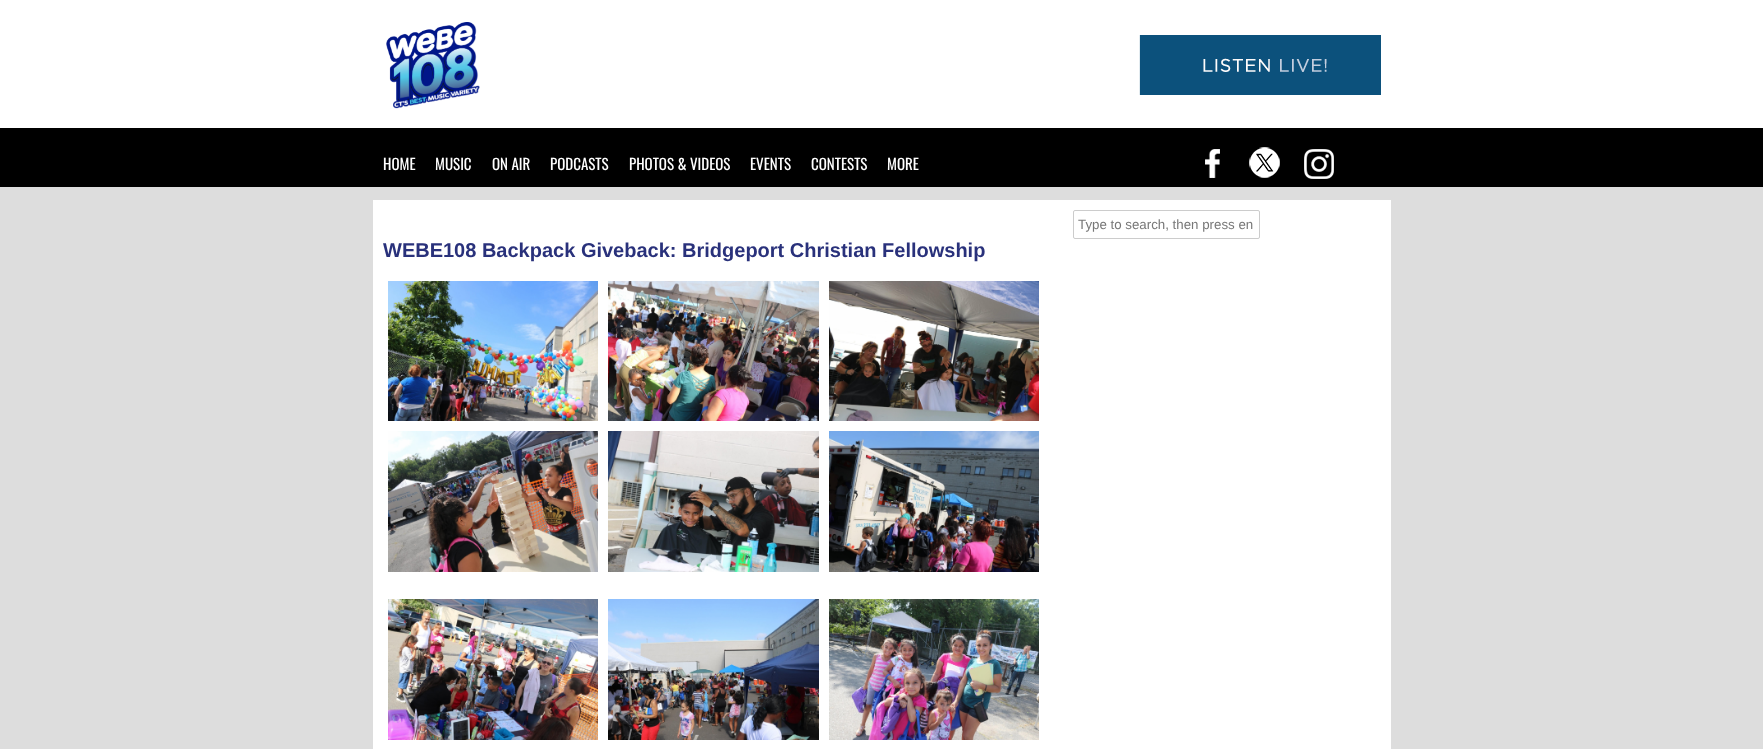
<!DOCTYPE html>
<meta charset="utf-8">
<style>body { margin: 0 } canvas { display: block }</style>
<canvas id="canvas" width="1763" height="749"></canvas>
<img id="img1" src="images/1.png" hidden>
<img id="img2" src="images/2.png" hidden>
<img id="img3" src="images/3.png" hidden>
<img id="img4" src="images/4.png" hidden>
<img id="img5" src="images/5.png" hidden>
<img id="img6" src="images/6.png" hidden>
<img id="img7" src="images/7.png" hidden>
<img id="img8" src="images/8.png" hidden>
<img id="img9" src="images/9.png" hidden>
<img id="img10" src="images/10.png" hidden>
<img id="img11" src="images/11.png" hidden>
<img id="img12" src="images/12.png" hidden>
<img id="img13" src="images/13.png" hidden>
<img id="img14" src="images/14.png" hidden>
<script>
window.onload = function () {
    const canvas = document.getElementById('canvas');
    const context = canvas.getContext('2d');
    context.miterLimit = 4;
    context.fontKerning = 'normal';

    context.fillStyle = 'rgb(221, 221, 221)';
    context.fillRect(0, 0, 1763, 749);
    context.fillStyle = 'rgb(255, 255, 255)';
    context.fillRect(0, 0, 1763, 128);
    context.drawImage(document.getElementById('img1'), 386, 22, 94, 87);
    context.drawImage(document.getElementById('img2'), 1139, 35, 242, 60);
    context.fillStyle = 'rgb(0, 0, 0)';
    context.fillRect(0, 128, 1763, 59);
    context.drawImage(document.getElementById('img3'), 1205, 149, 15, 29);
    context.drawImage(document.getElementById('img4'), 1249, 147, 31, 31);
    context.drawImage(document.getElementById('img5'), 1304, 149, 30, 30);
    context.fillStyle = 'rgb(255, 255, 255)';
    context.fillRect(373, 200, 1018, 549);
    context.beginPath();
    context.roundRect(1073.5, 210.5, 186, 28, 1.5);
    context.strokeStyle = 'rgb(204, 204, 204)';
    context.stroke();
    context.drawImage(document.getElementById('img6'), 388, 281, 210, 140);
    context.drawImage(document.getElementById('img7'), 608, 281, 211, 140);
    context.drawImage(document.getElementById('img8'), 829, 281, 210, 140);
    context.drawImage(document.getElementById('img9'), 388, 431, 210, 141);
    context.drawImage(document.getElementById('img10'), 608, 431, 211, 141);
    context.drawImage(document.getElementById('img11'), 829, 431, 210, 141);
    context.drawImage(document.getElementById('img12'), 388, 599, 210, 141);
    context.drawImage(document.getElementById('img13'), 608, 599, 211, 141);
    context.drawImage(document.getElementById('img14'), 829, 599, 210, 141);
    context.font = '15px Oswald';
    context.fillText('HOME', 383, 170);
    context.fillText('MUSIC', 435, 170);
    context.fillText('ON AIR', 492, 170);
    context.fillText('PODCASTS', 550, 170);
    context.fillText('PHOTOS & VIDEOS', 629, 170);
    context.fillText('EVENTS', 750, 170);
    context.fillText('CONTESTS', 811, 170);
    context.fillText('MORE', 887, 170);
    context.font = '13.3px Liberation Sans';
    context.fillStyle = 'rgb(119, 119, 119)';
    context.fillText('Type to search, then press en', 1078, 229);
    context.font = 'bold 20px Liberation Sans';
    context.fillStyle = 'rgb(41, 49, 123)';
    context.fillText('WEBE108 Backpack Giveback: Bridgeport Christian Fellowship', 383, 257);
};
</script>
